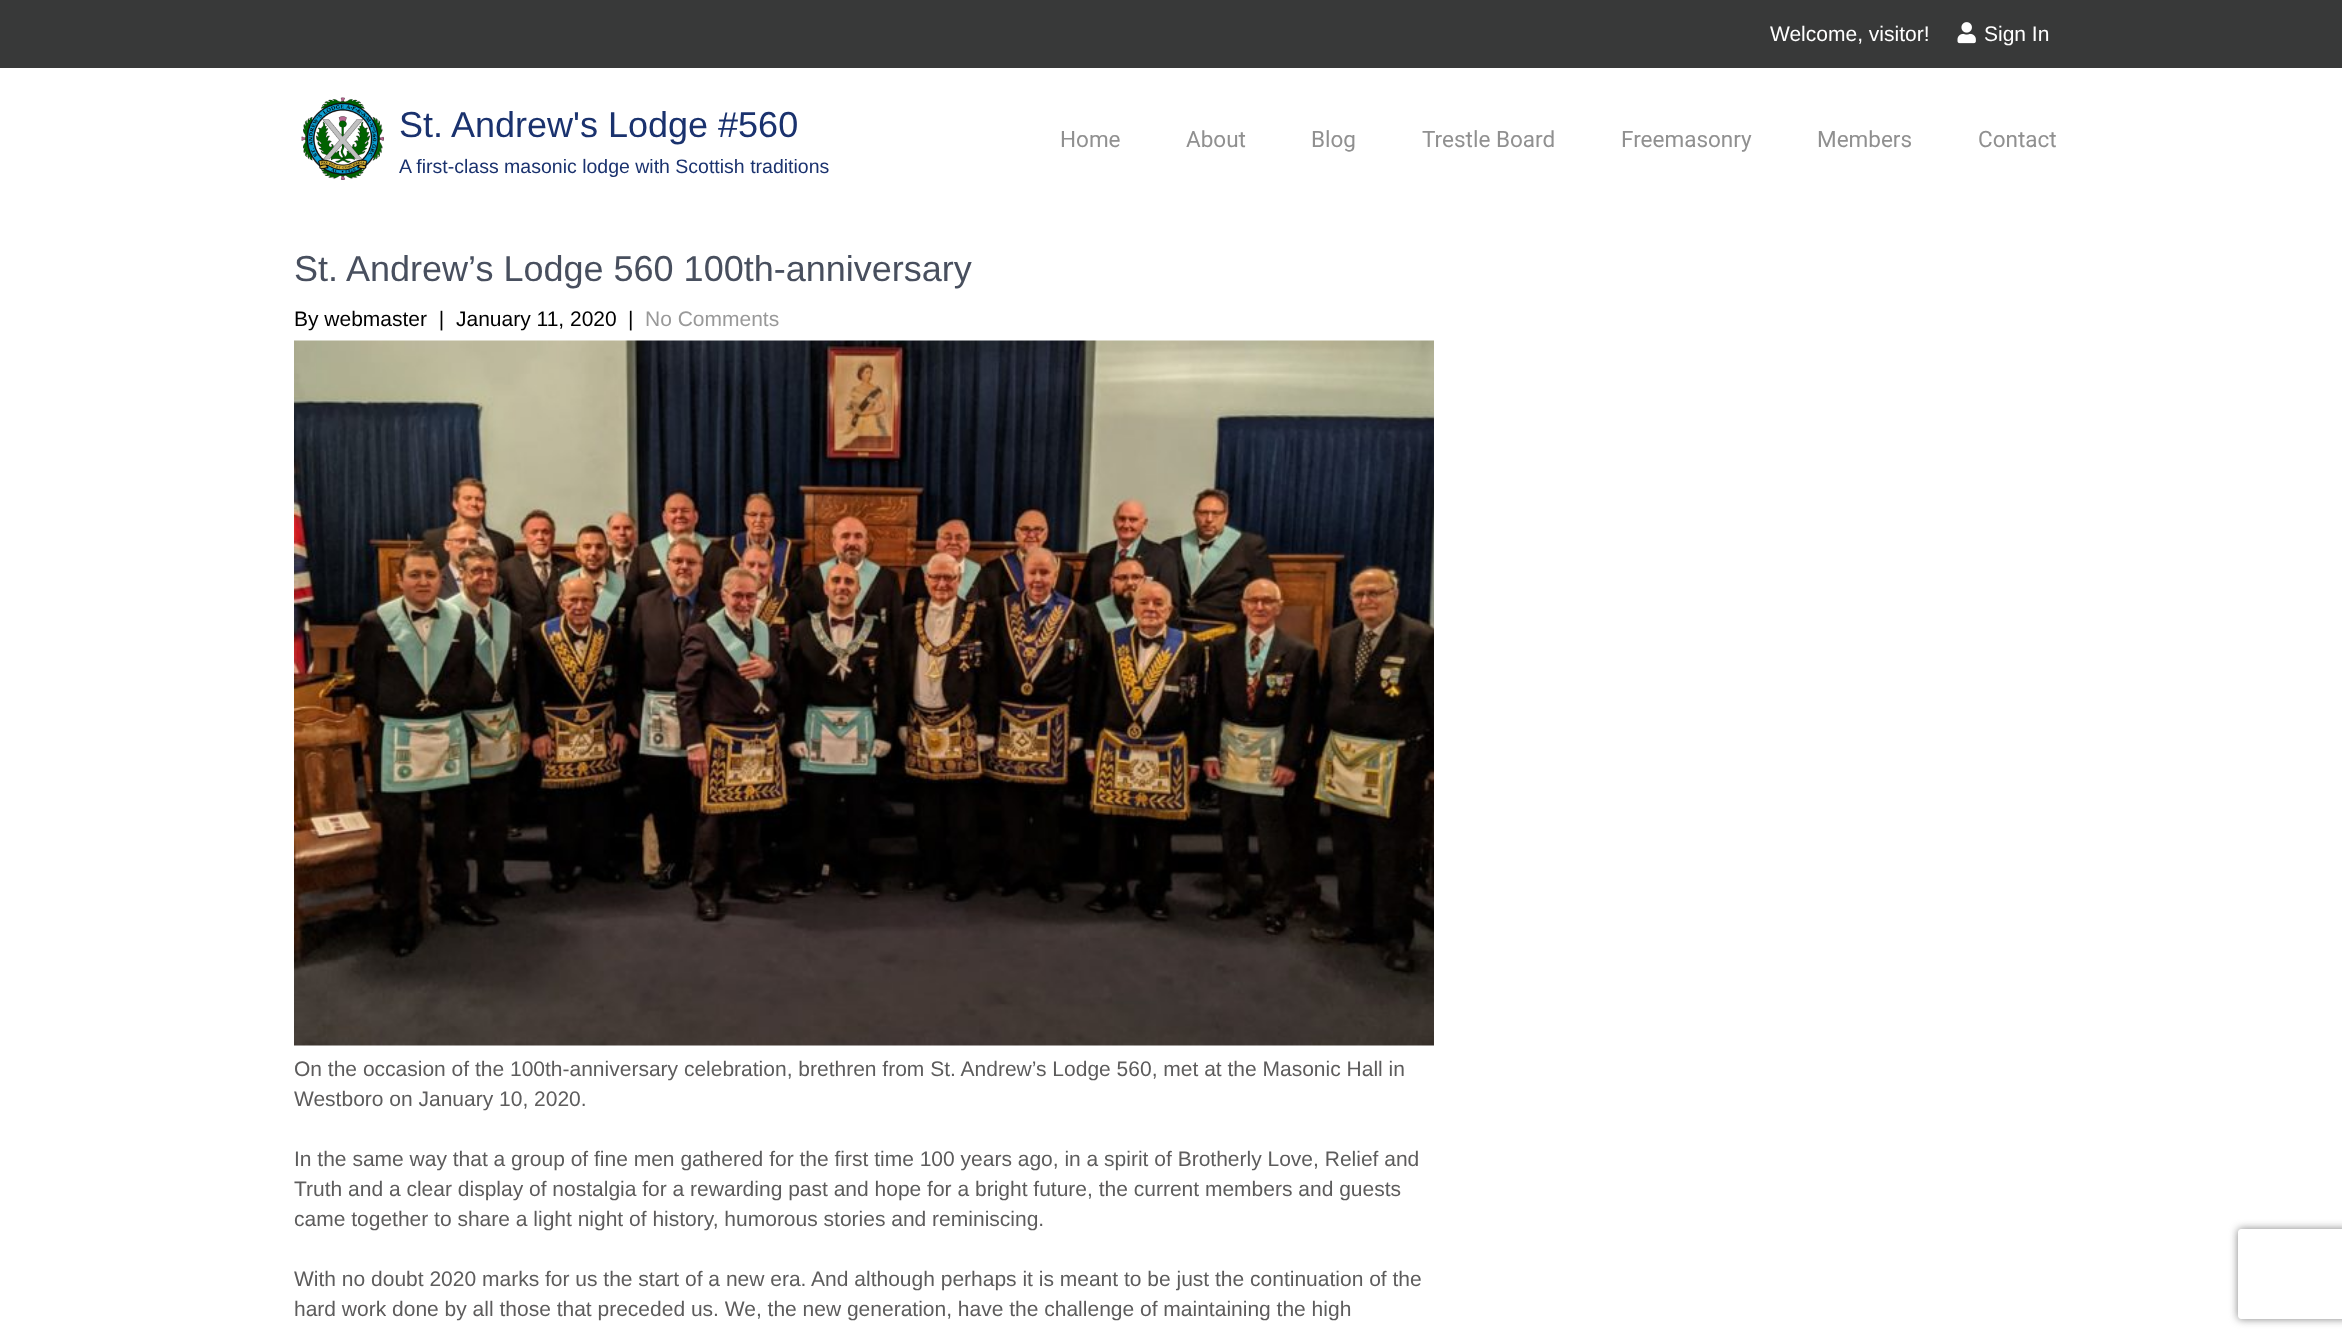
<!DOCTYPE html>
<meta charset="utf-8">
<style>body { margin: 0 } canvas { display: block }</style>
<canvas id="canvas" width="2342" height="1339"></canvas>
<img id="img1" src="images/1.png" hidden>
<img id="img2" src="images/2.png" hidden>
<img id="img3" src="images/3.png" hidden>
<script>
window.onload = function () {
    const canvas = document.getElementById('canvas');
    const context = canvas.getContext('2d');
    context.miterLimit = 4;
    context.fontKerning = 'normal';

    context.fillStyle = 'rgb(255, 255, 255)';
    context.fillRect(0, 0, 2342, 1339);
    context.fillStyle = 'rgb(56, 57, 57)';
    context.fillRect(0, 0, 2342, 68);
    context.drawImage(document.getElementById('img1'), 1957, 22, 19, 22);
    context.drawImage(document.getElementById('img2'), 301, 97, 83, 83);
    context.drawImage(document.getElementById('img3'), 294, 340, 1140, 706);
    context.save();
    context.beginPath();
    context.moveTo(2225, 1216);
    context.lineTo(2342, 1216);
    context.lineTo(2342, 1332);
    context.lineTo(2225, 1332);
    context.closePath();
    context.moveTo(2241, 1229);
    context.lineTo(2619, 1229);
    context.bezierCurveTo(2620.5, 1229, 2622, 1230.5, 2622, 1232);
    context.lineTo(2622, 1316);
    context.bezierCurveTo(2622, 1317.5, 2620.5, 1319, 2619, 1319);
    context.lineTo(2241, 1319);
    context.bezierCurveTo(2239.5, 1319, 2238, 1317.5, 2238, 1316);
    context.lineTo(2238, 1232);
    context.bezierCurveTo(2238, 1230.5, 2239.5, 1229, 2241, 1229);
    context.closePath();
    context.clip('evenodd');
    context.fillStyle = 'rgb(128, 128, 128)';
    context.filter = 'blur(4px)';
    context.beginPath();
    context.roundRect(2238, 1229, 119, 90, 3);
    context.fill();
    context.filter = 'none';
    context.restore();
    context.font = '21px Liberation Sans';
    context.fillStyle = 'rgb(255, 255, 255)';
    context.fillText('Welcome, visitor!', 1770, 41);
    context.fillText('Sign In', 1984, 41);
    context.font = '36px Liberation Sans';
    context.fillStyle = 'rgb(26, 50, 110)';
    context.fillText('St. Andrew\'s Lodge #560', 399, 137);
    context.font = '19.5px Liberation Sans';
    context.fillText('A first-class masonic lodge with Scottish traditions', 399, 173);
    context.font = '22.5px Roboto';
    context.fillStyle = 'rgb(144, 144, 144)';
    context.fillText('Home', 1060, 147);
    context.fillText('About', 1186, 147);
    context.fillText('Blog', 1311, 147);
    context.fillText('Trestle Board', 1422, 147);
    context.fillText('Freemasonry', 1621, 147);
    context.fillText('Members', 1817, 147);
    context.fillText('Contact', 1978, 147);
    context.font = '36px Liberation Sans';
    context.fillStyle = 'rgb(72, 79, 94)';
    context.fillText('St. Andrew’s Lodge 560 100th-anniversary', 294, 281);
    context.font = '21px Liberation Sans';
    context.fillStyle = 'rgb(0, 0, 0)';
    context.fillText('By webmaster  |', 294, 326);
    context.fillText('January 11, 2020', 456, 326);
    context.fillText('|', 628, 326);
    context.fillStyle = 'rgb(153, 153, 153)';
    context.fillText('No Comments', 645, 326);
    context.fillStyle = 'rgb(93, 92, 92)';
    context.fillText('On the occasion of the 100th-anniversary celebration, brethren from St. Andrew’s Lodge 560, met at the Masonic Hall in', 294, 1076);
    context.fillText('Westboro on January 10, 2020.', 294, 1106);
    context.fillText('In the same way that a group of fine men gathered for the first time 100 years ago, in a spirit of Brotherly Love, Relief and', 294, 1166);
    context.fillText('Truth and a clear display of nostalgia for a rewarding past and hope for a bright future, the current members and guests', 294, 1196);
    context.fillText('came together to share a light night of history, humorous stories and reminiscing.', 294, 1226);
    context.fillText('With no doubt 2020 marks for us the start of a new era. And although perhaps it is meant to be just the continuation of the', 294, 1286);
    context.fillText('hard work done by all those that preceded us. We, the new generation, have the challenge of maintaining the high', 294, 1316);
};
</script>
